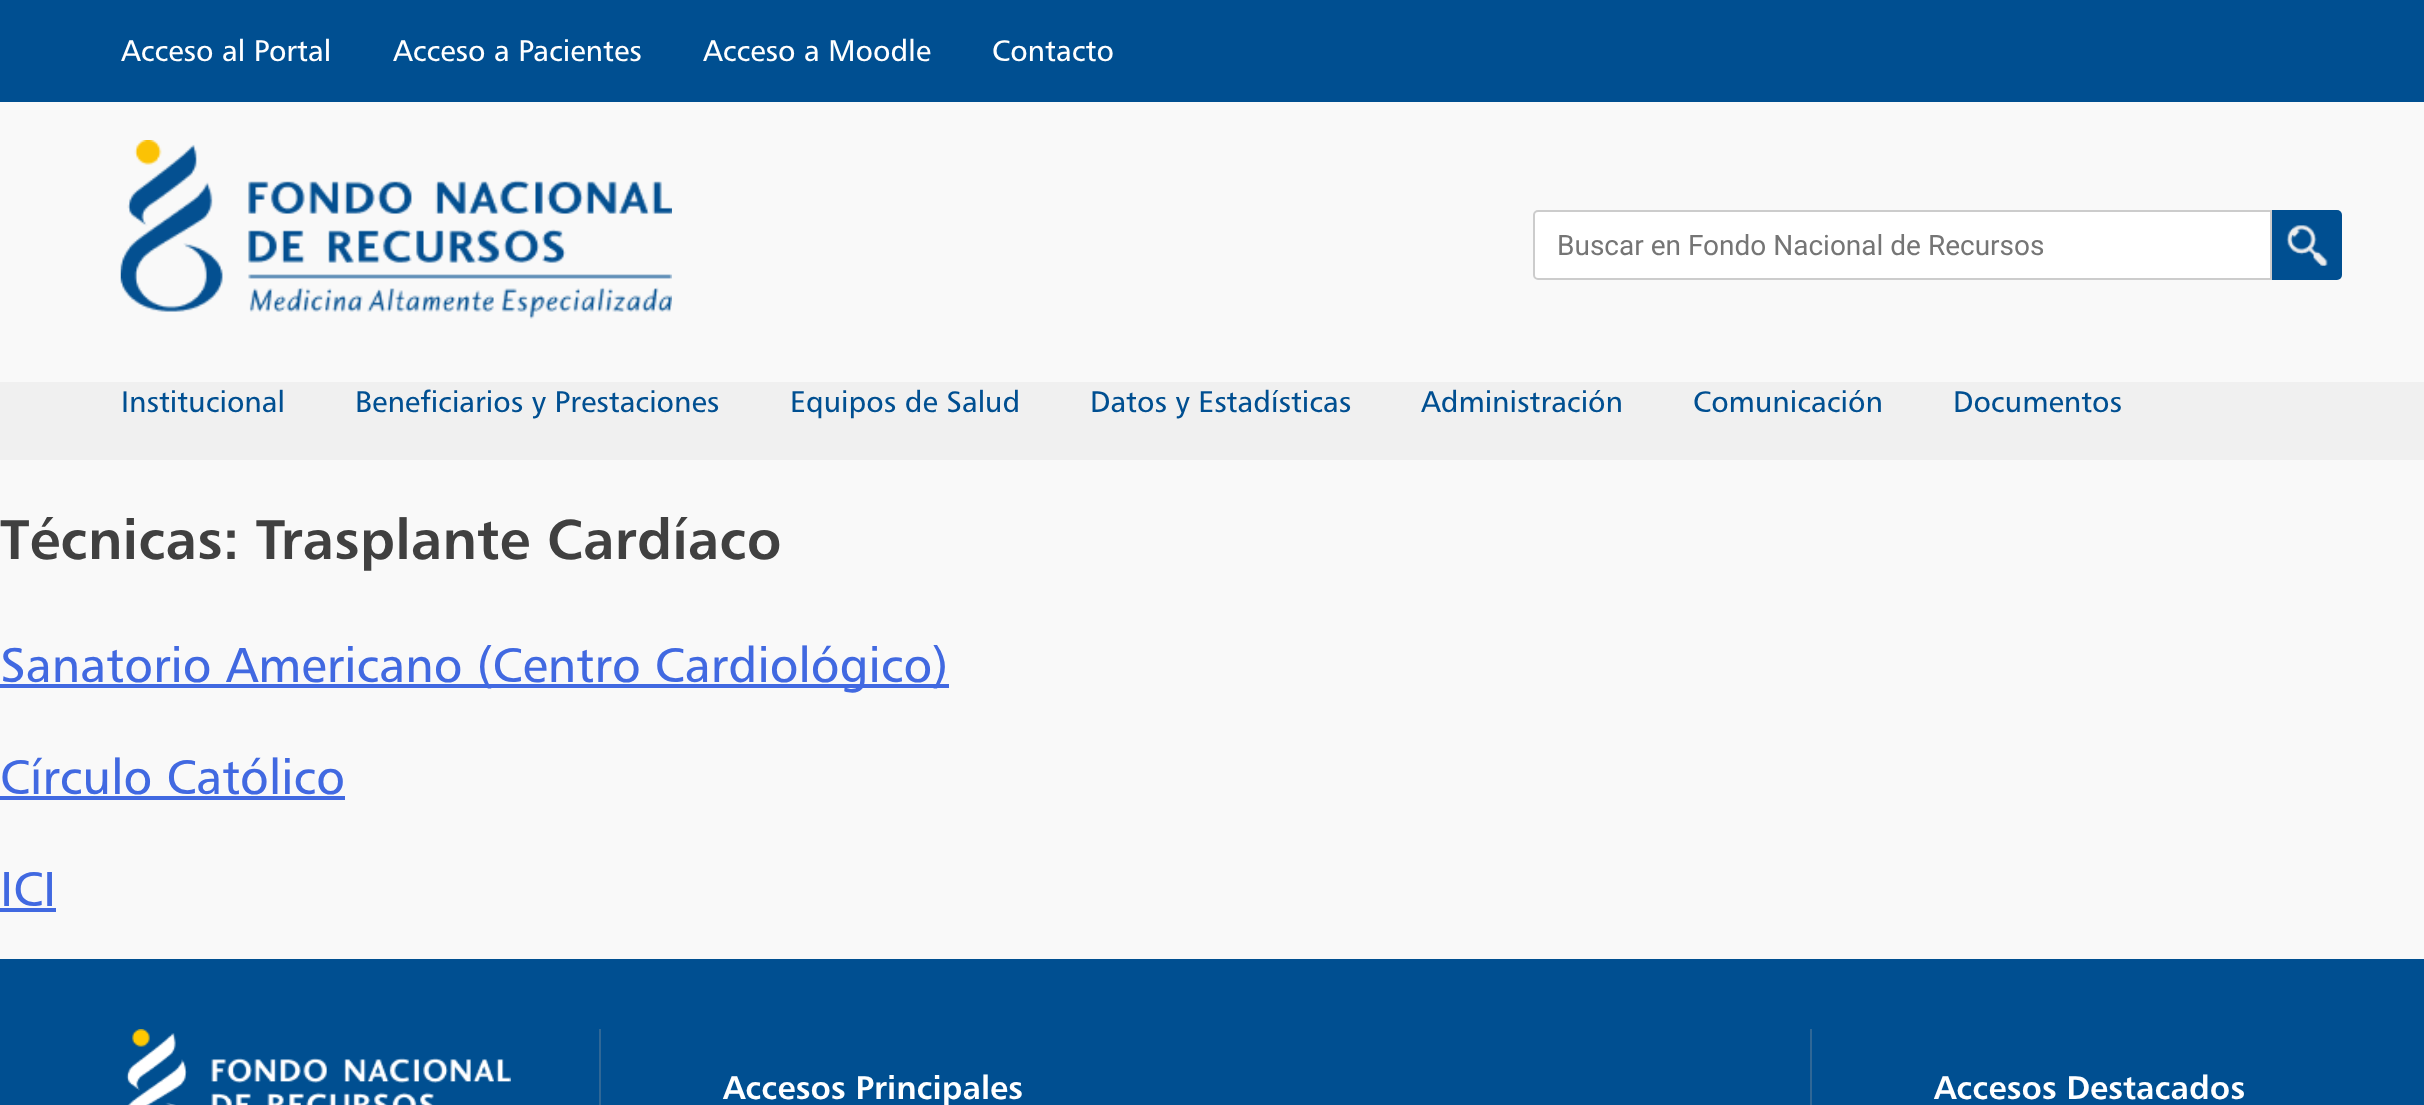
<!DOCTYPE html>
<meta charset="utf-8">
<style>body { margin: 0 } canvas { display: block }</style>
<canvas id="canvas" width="2424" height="1105"></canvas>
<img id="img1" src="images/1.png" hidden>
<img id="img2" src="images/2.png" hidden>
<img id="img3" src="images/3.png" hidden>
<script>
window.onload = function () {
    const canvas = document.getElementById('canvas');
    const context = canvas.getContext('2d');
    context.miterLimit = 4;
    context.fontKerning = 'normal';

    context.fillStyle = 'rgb(249, 249, 249)';
    context.fillRect(0, 0, 2424, 1105);
    context.fillStyle = 'rgb(0, 79, 145)';
    context.fillRect(0, 0, 2424, 102);
    context.fillStyle = 'rgb(240, 240, 240)';
    context.fillRect(0, 382, 2424, 78);
    context.drawImage(document.getElementById('img1'), 120, 140, 552, 179);
    context.fillStyle = 'rgb(255, 255, 255)';
    context.beginPath();
    context.roundRect(1534, 211, 737, 68, [4, 0, 0, 4]);
    context.fill();
    context.strokeStyle = 'rgb(204, 204, 204)';
    context.lineWidth = 2;
    context.stroke();
    context.fillStyle = 'rgb(0, 79, 145)';
    context.beginPath();
    context.roundRect(2272, 210, 70, 70, [0, 5, 5, 0]);
    context.fill();
    context.drawImage(document.getElementById('img2'), 2286, 225, 42, 41);
    context.fillStyle = 'rgb(65, 105, 225)';
    context.fillRect(0, 684, 949, 4);
    context.fillRect(0, 796, 345, 4);
    context.fillRect(0, 908, 56, 4);
    context.fillStyle = 'rgb(0, 79, 145)';
    context.fillRect(0, 959, 2424, 146);
    context.fillStyle = 'rgb(47, 103, 150)';
    context.fillRect(599, 1029, 2, 76);
    context.drawImage(document.getElementById('img3'), 126, 1029, 385, 76);
    context.fillRect(1810, 1029, 2, 76);
    context.font = '29.75px "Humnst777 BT"';
    context.fillStyle = 'rgb(255, 255, 255)';
    context.fillText('Acceso al Portal', 121, 61);
    context.fillText('Acceso a Pacientes', 393, 61);
    context.fillText('Acceso a Moodle', 703, 61);
    context.fillText('Contacto', 992, 61);
    context.fillStyle = 'rgb(0, 79, 145)';
    context.fillText('Institucional', 121, 412);
    context.fillText('Beneficiarios y Prestaciones', 355, 412);
    context.fillText('Equipos de Salud', 790, 412);
    context.fillText('Datos y Estadísticas', 1090, 412);
    context.fillText('Administración', 1421, 412);
    context.fillText('Comunicación', 1693, 412);
    context.fillText('Documentos', 1953, 412);
    context.font = '28px Roboto';
    context.fillStyle = 'rgb(117, 117, 117)';
    context.fillText('Buscar en Fondo Nacional de Recursos', 1557, 255);
    context.font = 'bold 56px "Humnst777 BT"';
    context.fillStyle = 'rgb(64, 64, 64)';
    context.fillText('Técnicas: Trasplante Cardíaco', 0, 559);
    context.font = '49px "Humnst777 BT"';
    context.fillStyle = 'rgb(65, 105, 225)';
    context.fillText('Sanatorio Americano (Centro Cardiológico)', 0, 682);
    context.fillText('Círculo Católico', 0, 794);
    context.fillText('ICI', 0, 906);
    context.font = 'bold 32.75px "Humnst777 BT"';
    context.fillStyle = 'rgb(255, 255, 255)';
    context.fillText('Accesos Principales', 723, 1099);
    context.fillText('Accesos Destacados', 1934, 1099);
};
</script>
